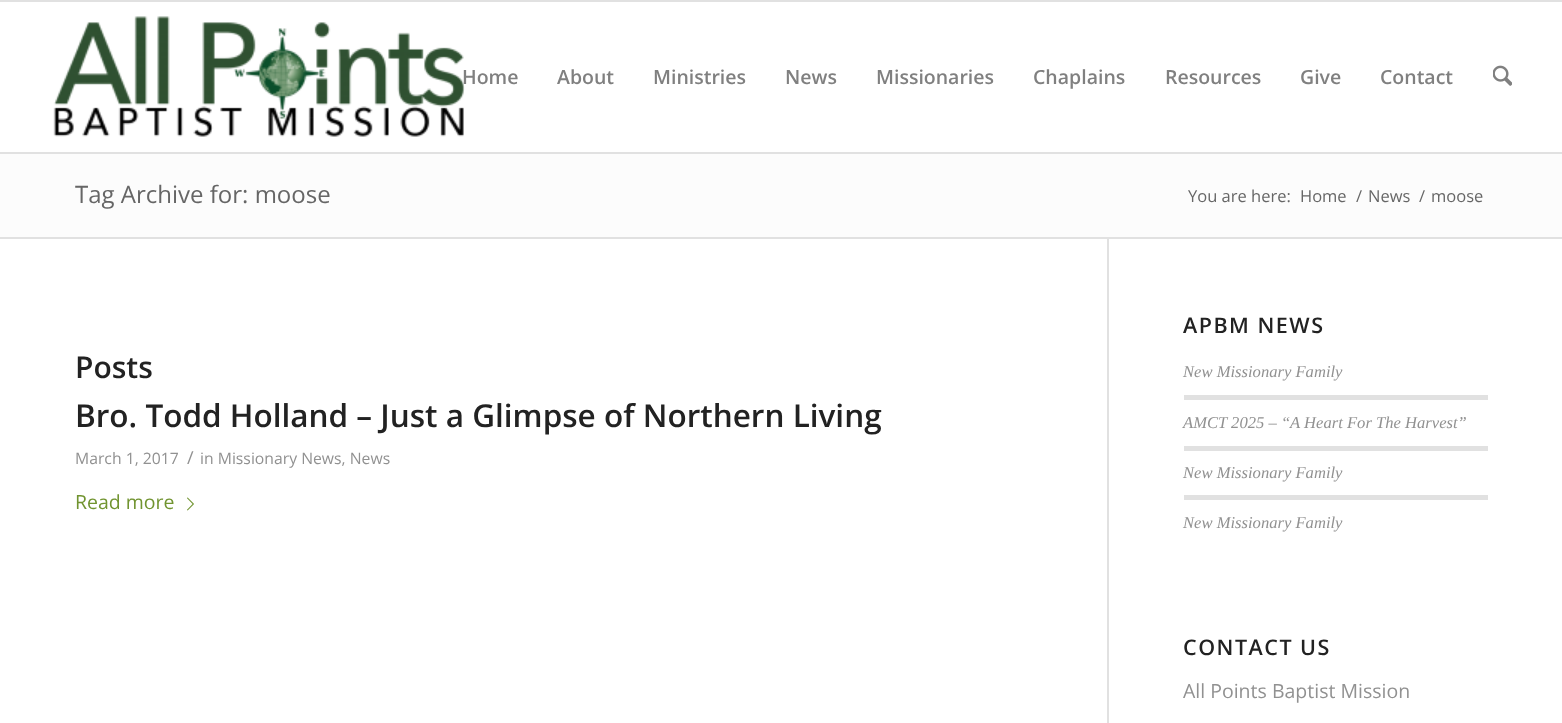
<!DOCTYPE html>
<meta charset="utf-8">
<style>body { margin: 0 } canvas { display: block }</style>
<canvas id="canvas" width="1562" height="723"></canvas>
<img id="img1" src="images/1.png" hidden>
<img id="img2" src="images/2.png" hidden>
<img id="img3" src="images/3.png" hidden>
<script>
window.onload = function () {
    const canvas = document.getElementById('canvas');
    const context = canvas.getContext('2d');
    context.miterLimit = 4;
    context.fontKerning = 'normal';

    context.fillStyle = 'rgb(255, 255, 255)';
    context.fillRect(0, 0, 1562, 723);
    context.fillStyle = 'rgb(225, 225, 225)';
    context.fillRect(0, 0, 1562, 2);
    context.fillRect(0, 152, 1562, 2);
    context.drawImage(document.getElementById('img1'), 53, 16, 412, 121);
    context.drawImage(document.getElementById('img2'), 1493, 65, 19, 21);
    context.fillStyle = 'rgb(252, 252, 252)';
    context.fillRect(0, 154, 1562, 83);
    context.fillStyle = 'rgb(225, 225, 225)';
    context.fillRect(0, 237, 1562, 2);
    context.fillRect(1107, 239, 2, 484);
    context.drawImage(document.getElementById('img3'), 187, 497, 7, 14);
    context.fillRect(1184, 395, 304, 5);
    context.fillRect(1184, 446, 304, 5);
    context.fillRect(1184, 495, 304, 5);
    context.font = '600 19.5px Open Sans';
    context.fillStyle = 'rgb(128, 128, 128)';
    context.fillText('Home', 462, 84);
    context.fillText('About', 557, 84);
    context.fillText('Ministries', 653, 84);
    context.fillText('News', 785, 84);
    context.fillText('Missionaries', 876, 84);
    context.fillText('Chaplains', 1033, 84);
    context.fillText('Resources', 1165, 84);
    context.fillText('Give', 1300, 84);
    context.fillText('Contact', 1380, 84);
    context.font = '24px Open Sans';
    context.fillStyle = 'rgb(102, 102, 102)';
    context.fillText('Tag Archive for: moose', 75, 203);
    context.font = '16.5px Open Sans';
    context.fillText('You are here:', 1188, 202);
    context.fillText('Home', 1300, 202);
    context.fillText('/', 1356, 202);
    context.fillText('News', 1368, 202);
    context.fillText('/', 1419, 202);
    context.fillText('moose', 1431, 202);
    context.font = '600 30px Open Sans';
    context.fillStyle = 'rgb(34, 34, 34)';
    context.fillText('Posts', 75, 378);
    context.font = '600 31.5px Open Sans';
    context.fillText('Bro. Todd Holland – Just a Glimpse of Northern Living', 75, 427);
    context.font = '15.75px Open Sans';
    context.fillStyle = 'rgb(145, 145, 145)';
    context.fillText('March 1, 2017', 75, 464);
    context.font = '18px Open Sans';
    context.fillText('/', 187, 464);
    context.font = '15.75px Open Sans';
    context.fillText('in Missionary News, News', 200, 464);
    context.font = '19.5px Open Sans';
    context.fillStyle = 'rgb(113, 148, 48)';
    context.fillText('Read more', 75, 509);
    context.letterSpacing = '1.5px';
    context.font = '600 21.5px Open Sans';
    context.fillStyle = 'rgb(34, 34, 34)';
    context.fillText('APBM NEWS', 1183, 333);
    context.letterSpacing = '0px';
    context.font = 'italic 16.6px Liberation Serif';
    context.fillStyle = 'rgb(145, 145, 145)';
    context.fillText('New Missionary Family', 1183, 377);
    context.fillText('AMCT 2025 – “A Heart For The Harvest”', 1183, 428);
    context.fillText('New Missionary Family', 1183, 478);
    context.fillText('New Missionary Family', 1183, 528);
    context.letterSpacing = '1.5px';
    context.font = '600 21.5px Open Sans';
    context.fillStyle = 'rgb(34, 34, 34)';
    context.fillText('CONTACT US', 1183, 655);
    context.letterSpacing = '0px';
    context.font = '19.5px Open Sans';
    context.fillStyle = 'rgb(145, 145, 145)';
    context.fillText('All Points Baptist Mission', 1183, 698);
};
</script>
